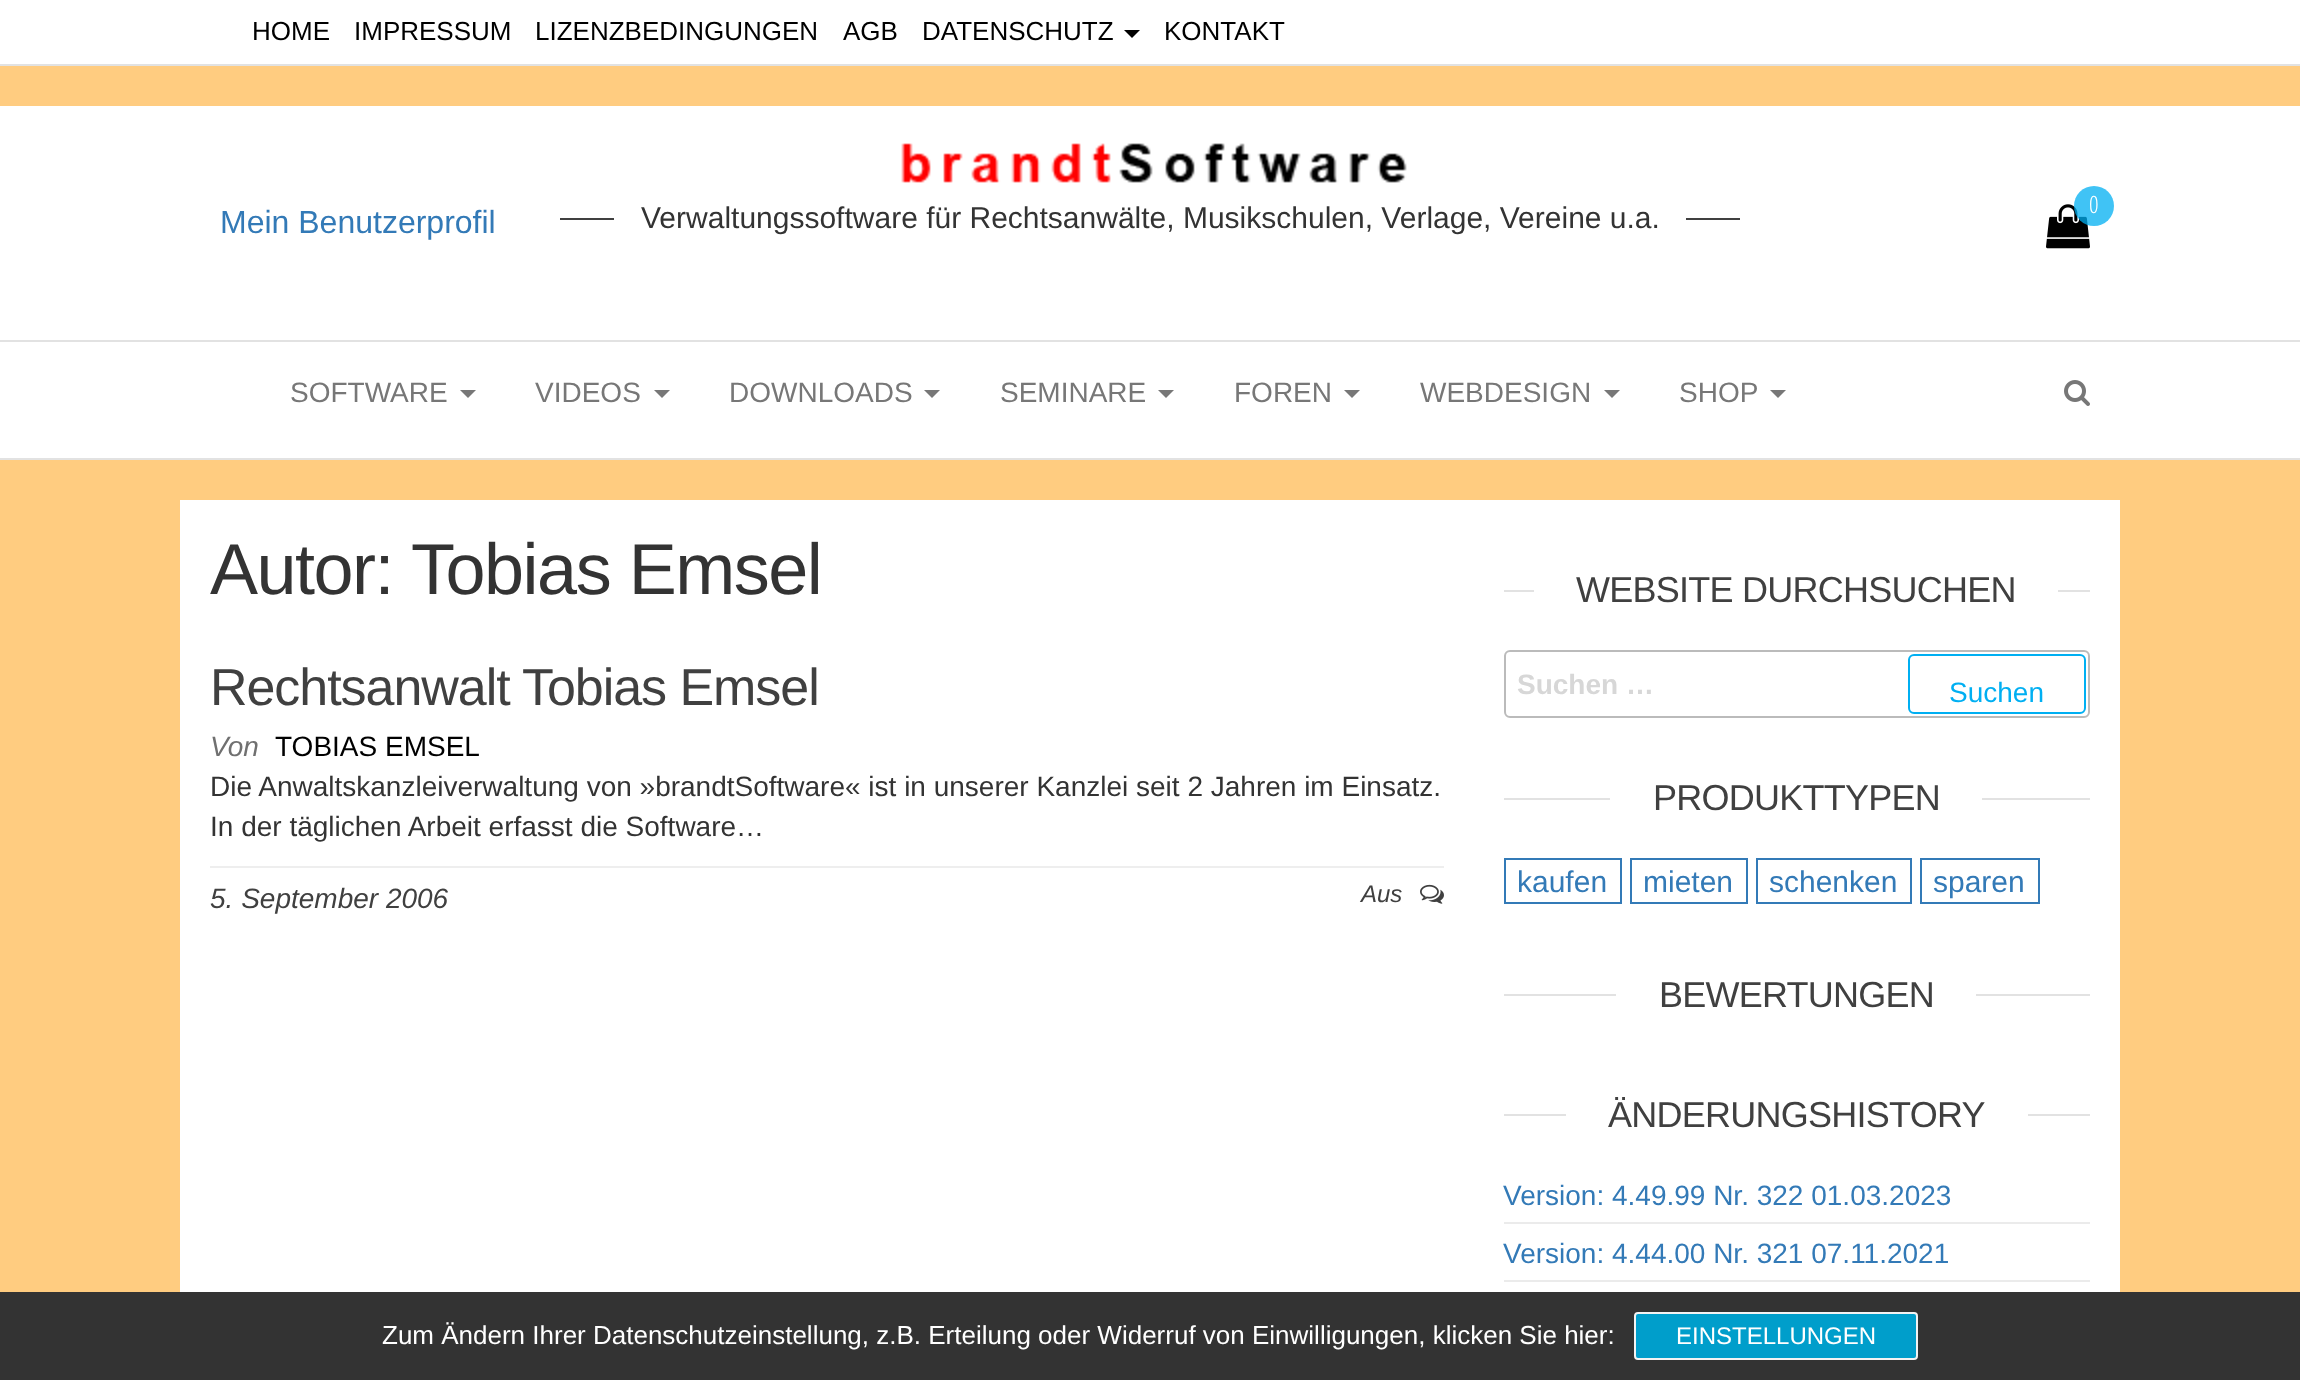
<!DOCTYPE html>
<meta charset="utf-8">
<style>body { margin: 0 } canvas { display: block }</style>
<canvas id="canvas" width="2300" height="1380"></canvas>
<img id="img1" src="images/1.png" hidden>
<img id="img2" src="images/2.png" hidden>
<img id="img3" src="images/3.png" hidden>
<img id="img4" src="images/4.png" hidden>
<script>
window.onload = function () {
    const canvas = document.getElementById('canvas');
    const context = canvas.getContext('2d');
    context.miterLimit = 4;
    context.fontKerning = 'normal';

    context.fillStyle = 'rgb(255, 204, 128)';
    context.fillRect(0, 0, 2300, 1380);
    context.fillStyle = 'rgb(255, 255, 255)';
    context.fillRect(0, 0, 2300, 64);
    context.fillStyle = 'rgb(226, 226, 226)';
    context.fillRect(0, 64, 2300, 2);
    context.fillStyle = 'rgb(0, 0, 0)';
    context.beginPath();
    context.moveTo(1124, 30);
    context.lineTo(1140, 30);
    context.lineTo(1132, 38);
    context.closePath();
    context.fill();
    context.fillStyle = 'rgb(255, 255, 255)';
    context.fillRect(0, 106, 2300, 234);
    context.drawImage(document.getElementById('img1'), 901, 143, 506, 40);
    context.fillStyle = 'rgb(64, 64, 64)';
    context.fillRect(560, 218, 54, 2);
    context.fillRect(1686, 218, 54, 2);
    context.drawImage(document.getElementById('img2'), 2046, 204, 44, 45);
    context.fillStyle = 'rgba(0, 175, 242, 0.75)';
    context.beginPath();
    context.arc(2094, 206, 20, 0, 2 * Math.PI);
    context.fill();
    context.fillStyle = 'rgb(255, 255, 255)';
    context.fillRect(0, 342, 2300, 116);
    context.fillStyle = 'rgb(226, 226, 226)';
    context.fillRect(0, 340, 2300, 2);
    context.fillRect(0, 458, 2300, 2);
    context.fillStyle = 'rgb(119, 119, 119)';
    context.beginPath();
    context.moveTo(460, 390);
    context.lineTo(476, 390);
    context.lineTo(468, 398);
    context.closePath();
    context.fill();
    context.beginPath();
    context.moveTo(654, 390);
    context.lineTo(670, 390);
    context.lineTo(662, 398);
    context.closePath();
    context.fill();
    context.beginPath();
    context.moveTo(924, 390);
    context.lineTo(940, 390);
    context.lineTo(932, 398);
    context.closePath();
    context.fill();
    context.beginPath();
    context.moveTo(1158, 390);
    context.lineTo(1174, 390);
    context.lineTo(1166, 398);
    context.closePath();
    context.fill();
    context.beginPath();
    context.moveTo(1344, 390);
    context.lineTo(1360, 390);
    context.lineTo(1352, 398);
    context.closePath();
    context.fill();
    context.beginPath();
    context.moveTo(1604, 390);
    context.lineTo(1620, 390);
    context.lineTo(1612, 398);
    context.closePath();
    context.fill();
    context.beginPath();
    context.moveTo(1770, 390);
    context.lineTo(1786, 390);
    context.lineTo(1778, 398);
    context.closePath();
    context.fill();
    context.drawImage(document.getElementById('img3'), 2064, 380, 26, 26);
    context.fillStyle = 'rgb(255, 255, 255)';
    context.fillRect(180, 500, 1940, 792);
    context.fillStyle = 'rgb(238, 238, 238)';
    context.fillRect(210, 866, 1234, 2);
    context.drawImage(document.getElementById('img4'), 1420, 884, 24, 20);
    context.fillStyle = 'rgb(226, 226, 226)';
    context.fillRect(1504, 590, 586, 2);
    context.fillStyle = 'rgb(255, 255, 255)';
    context.fillRect(1534, 590, 524, 2);
    context.beginPath();
    context.roundRect(1505, 651, 584, 66, 5);
    context.strokeStyle = 'rgb(187, 187, 187)';
    context.lineWidth = 2;
    context.stroke();
    context.beginPath();
    context.roundRect(1909, 655, 176, 58, 5);
    context.strokeStyle = 'rgb(0, 175, 242)';
    context.stroke();
    context.fillStyle = 'rgb(226, 226, 226)';
    context.fillRect(1504, 798, 586, 2);
    context.fillStyle = 'rgb(255, 255, 255)';
    context.fillRect(1610, 798, 372, 2);
    context.strokeStyle = 'rgb(51, 122, 183)';
    context.strokeRect(1505, 859, 116, 44);
    context.strokeRect(1631, 859, 116, 44);
    context.strokeRect(1757, 859, 154, 44);
    context.strokeRect(1921, 859, 118, 44);
    context.fillStyle = 'rgb(226, 226, 226)';
    context.fillRect(1504, 994, 586, 2);
    context.fillStyle = 'rgb(255, 255, 255)';
    context.fillRect(1616, 994, 360, 2);
    context.fillStyle = 'rgb(226, 226, 226)';
    context.fillRect(1504, 1114, 586, 2);
    context.fillStyle = 'rgb(255, 255, 255)';
    context.fillRect(1566, 1114, 462, 2);
    context.fillStyle = 'rgb(235, 235, 235)';
    context.fillRect(1504, 1222, 586, 2);
    context.fillRect(1504, 1280, 586, 2);
    context.fillStyle = 'rgb(51, 51, 51)';
    context.fillRect(0, 1292, 2300, 88);
    context.fillStyle = 'rgb(0, 158, 203)';
    context.beginPath();
    context.roundRect(1635, 1313, 282, 46, 3);
    context.fill();
    context.strokeStyle = 'rgb(243, 243, 243)';
    context.stroke();
    context.font = '26px Liberation Sans';
    context.fillStyle = 'rgb(0, 0, 0)';
    context.fillText('HOME', 252, 40);
    context.fillText('IMPRESSUM', 354, 40);
    context.fillText('LIZENZBEDINGUNGEN', 535, 40);
    context.fillText('AGB', 843, 40);
    context.fillText('DATENSCHUTZ', 922, 40);
    context.fillText('KONTAKT', 1164, 40);
    context.font = '32px Liberation Sans';
    context.fillStyle = 'rgb(51, 122, 183)';
    context.fillText('Mein Benutzerprofil', 220, 233);
    context.font = '30px Liberation Sans';
    context.fillStyle = 'rgb(51, 51, 51)';
    context.fillText('Verwaltungssoftware für Rechtsanwälte, Musikschulen, Verlage, Vereine u.a.', 641, 228);
    context.font = '300 24px Open Sans Condensed';
    context.fillStyle = 'rgb(255, 255, 255)';
    context.fillText('0', 2089, 213);
    context.font = '28px Liberation Sans';
    context.fillStyle = 'rgb(119, 119, 119)';
    context.fillText('SOFTWARE', 290, 402);
    context.fillText('VIDEOS', 535, 402);
    context.fillText('DOWNLOADS', 729, 402);
    context.fillText('SEMINARE', 1000, 402);
    context.fillText('FOREN', 1234, 402);
    context.fillText('WEBDESIGN', 1420, 402);
    context.fillText('SHOP', 1679, 402);
    context.letterSpacing = '-1.5px';
    context.font = '72px Liberation Sans';
    context.fillStyle = 'rgb(51, 51, 51)';
    context.fillText('Autor:', 210, 594);
    context.fillText('Tobias Emsel', 411, 594);
    context.letterSpacing = '-1.05px';
    context.font = '52px Liberation Sans';
    context.fillStyle = 'rgb(64, 64, 64)';
    context.fillText('Rechtsanwalt Tobias Emsel', 210, 705);
    context.letterSpacing = '0px';
    context.font = 'italic 28px Liberation Sans';
    context.fillStyle = 'rgb(112, 112, 112)';
    context.fillText('Von', 210, 756);
    context.font = '28px Liberation Sans';
    context.fillStyle = 'rgb(0, 0, 0)';
    context.fillText('TOBIAS EMSEL', 275, 756);
    context.fillStyle = 'rgb(51, 51, 51)';
    context.fillText('Die Anwaltskanzleiverwaltung von »brandtSoftware« ist in unserer Kanzlei seit 2 Jahren im Einsatz.', 210, 796);
    context.fillText('In der täglichen Arbeit erfasst die Software…', 210, 836);
    context.font = 'italic 28px Liberation Sans';
    context.fillStyle = 'rgb(64, 64, 64)';
    context.fillText('5. September 2006', 210, 908);
    context.font = 'italic 24px Liberation Sans';
    context.fillText('Aus', 1361, 902);
    context.letterSpacing = '-0.75px';
    context.font = '36px Liberation Sans';
    context.fillText('WEBSITE DURCHSUCHEN', 1576, 602);
    context.letterSpacing = '0px';
    context.font = 'bold 28px Liberation Sans';
    context.fillStyle = 'rgb(215, 215, 215)';
    context.fillText('Suchen …', 1517, 694);
    context.font = '28px Liberation Sans';
    context.fillStyle = 'rgb(0, 175, 242)';
    context.fillText('Suchen', 1949, 702);
    context.letterSpacing = '-0.75px';
    context.font = '36px Liberation Sans';
    context.fillStyle = 'rgb(64, 64, 64)';
    context.fillText('PRODUKTTYPEN', 1653, 810);
    context.letterSpacing = '0px';
    context.font = '30px Liberation Sans';
    context.fillStyle = 'rgb(51, 122, 183)';
    context.fillText('kaufen', 1517, 892);
    context.fillText('mieten', 1643, 892);
    context.fillText('schenken', 1769, 892);
    context.fillText('sparen', 1933, 892);
    context.letterSpacing = '-0.75px';
    context.font = '36px Liberation Sans';
    context.fillStyle = 'rgb(64, 64, 64)';
    context.fillText('BEWERTUNGEN', 1659, 1007);
    context.fillText('ÄNDERUNGSHISTORY', 1608, 1127);
    context.letterSpacing = '0px';
    context.font = '28px Liberation Sans';
    context.fillStyle = 'rgb(51, 122, 183)';
    context.fillText('Version: 4.49.99 Nr. 322 01.03.2023', 1503, 1205);
    context.fillText('Version: 4.44.00 Nr. 321 07.11.2021', 1503, 1263);
    context.font = '26px Liberation Sans';
    context.fillStyle = 'rgb(255, 255, 255)';
    context.fillText('Zum Ändern Ihrer Datenschutzeinstellung, z.B. Erteilung oder Widerruf von Einwilligungen, klicken Sie hier:', 382, 1344);
    context.font = '24px Liberation Sans';
    context.fillText('EINSTELLUNGEN', 1676, 1344);
};
</script>
